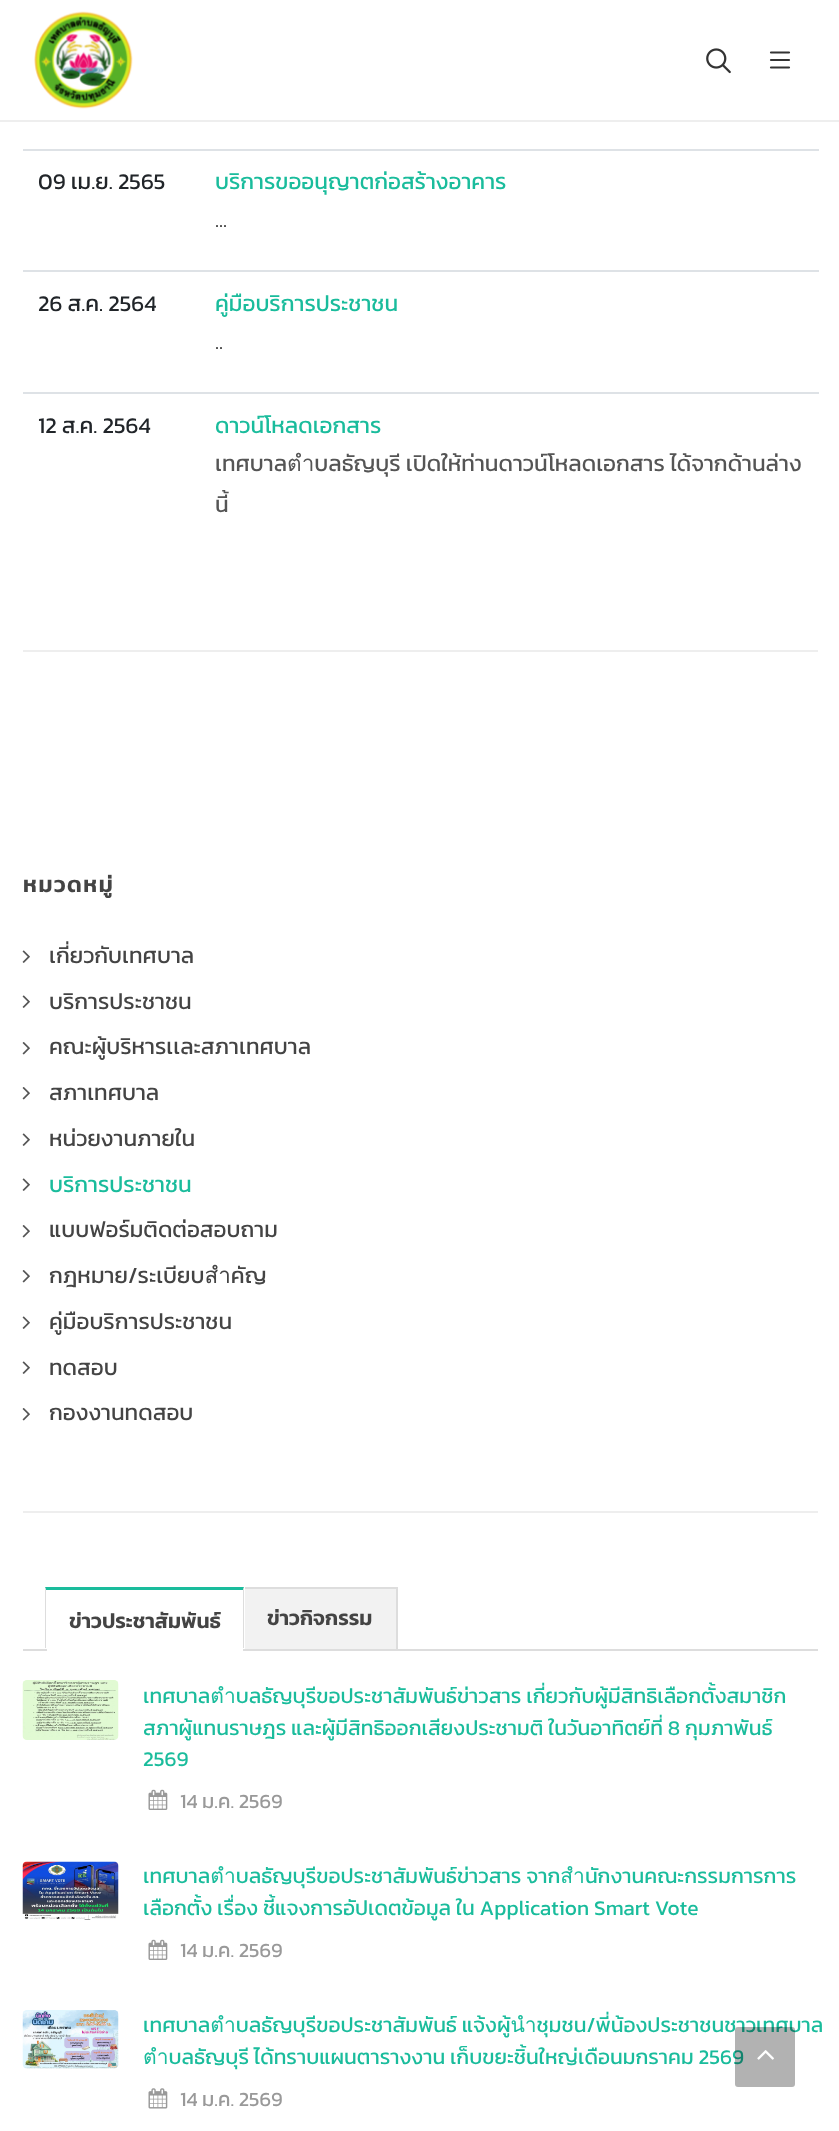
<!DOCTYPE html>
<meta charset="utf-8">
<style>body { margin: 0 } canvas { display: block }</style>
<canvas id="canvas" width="839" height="2131"></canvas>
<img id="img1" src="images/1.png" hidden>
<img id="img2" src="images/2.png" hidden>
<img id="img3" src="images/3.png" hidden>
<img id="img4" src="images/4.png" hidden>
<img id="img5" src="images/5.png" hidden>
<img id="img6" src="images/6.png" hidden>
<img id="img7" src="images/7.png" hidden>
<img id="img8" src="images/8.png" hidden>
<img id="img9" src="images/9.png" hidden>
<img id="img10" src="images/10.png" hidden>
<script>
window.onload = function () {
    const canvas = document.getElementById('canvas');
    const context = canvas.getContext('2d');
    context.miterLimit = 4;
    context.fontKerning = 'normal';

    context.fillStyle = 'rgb(255, 255, 255)';
    context.fillRect(0, 0, 839, 2131);
    context.fillStyle = 'rgb(238, 238, 238)';
    context.fillRect(0, 120, 839, 2);
    context.drawImage(document.getElementById('img1'), 34, 11, 99, 98);
    context.drawImage(document.getElementById('img2'), 706, 48, 25, 26);
    context.beginPath();
    context.moveTo(771, 52.5);
    context.lineTo(789, 52.5);
    context.moveTo(771, 60);
    context.lineTo(789, 60);
    context.moveTo(789, 67.5);
    context.lineTo(771, 67.5);
    context.strokeStyle = 'rgb(51, 51, 51)';
    context.lineWidth = 2.2;
    context.lineCap = 'round';
    context.stroke();
    context.fillStyle = 'rgb(222, 226, 230)';
    context.fillRect(23, 149, 796, 2);
    context.fillRect(23, 270, 796, 2);
    context.fillRect(23, 392, 796, 2);
    context.fillStyle = 'rgb(238, 238, 238)';
    context.fillRect(23, 650, 795, 2);
    context.drawImage(document.getElementById('img3'), 22, 950, 8, 13);
    context.drawImage(document.getElementById('img3'), 22, 995, 8, 13);
    context.drawImage(document.getElementById('img4'), 22, 1042, 8, 13);
    context.drawImage(document.getElementById('img4'), 22, 1087, 8, 13);
    context.drawImage(document.getElementById('img3'), 22, 1133, 8, 13);
    context.drawImage(document.getElementById('img3'), 22, 1178, 8, 13);
    context.drawImage(document.getElementById('img4'), 22, 1225, 8, 13);
    context.drawImage(document.getElementById('img4'), 22, 1270, 8, 13);
    context.drawImage(document.getElementById('img3'), 22, 1316, 8, 13);
    context.drawImage(document.getElementById('img3'), 22, 1361, 8, 13);
    context.drawImage(document.getElementById('img4'), 22, 1408, 8, 13);
    context.fillRect(23, 1511, 795, 2);
    context.fillStyle = 'rgb(221, 221, 221)';
    context.fillRect(23, 1649, 795, 2);
    context.fillStyle = 'rgb(26, 188, 156)';
    context.beginPath();
    context.moveTo(45, 1587);
    context.lineTo(244, 1587);
    context.lineTo(243, 1590);
    context.lineTo(46, 1590);
    context.closePath();
    context.fill();
    context.fillStyle = 'rgb(221, 221, 221)';
    context.beginPath();
    context.moveTo(244, 1587);
    context.lineTo(244, 1648);
    context.lineTo(243, 1648);
    context.lineTo(243, 1590);
    context.closePath();
    context.fill();
    context.beginPath();
    context.moveTo(45, 1648);
    context.lineTo(45, 1587);
    context.lineTo(46, 1590);
    context.lineTo(46, 1648);
    context.closePath();
    context.fill();
    context.fillStyle = 'rgb(255, 255, 255)';
    context.fillRect(47, 1649, 196, 2);
    context.fillStyle = 'rgb(221, 221, 221)';
    context.fillRect(245, 1587, 153, 2);
    context.fillRect(396, 1587, 2, 62);
    context.fillStyle = 'rgb(242, 242, 242)';
    context.fillRect(245, 1589, 151, 60);
    context.drawImage(document.getElementById('img5'), 22, 1680, 97, 60);
    context.drawImage(document.getElementById('img6'), 148, 1789, 20, 21);
    context.drawImage(document.getElementById('img7'), 22, 1861, 97, 59);
    context.drawImage(document.getElementById('img6'), 148, 1939, 20, 21);
    context.drawImage(document.getElementById('img8'), 22, 2010, 97, 59);
    context.drawImage(document.getElementById('img9'), 148, 2088, 20, 21);
    context.font = '22.5px Kanit';
    context.fillStyle = 'rgb(33, 37, 41)';
    context.fillText('09 เม.ย. 2565', 38, 189);
    context.fillStyle = 'rgb(26, 188, 156)';
    context.fillText('บริการขออนุญาตก่อสร้างอาคาร', 215, 189);
    context.fillStyle = 'rgb(85, 85, 85)';
    context.fillText('...', 215, 227);
    context.fillStyle = 'rgb(33, 37, 41)';
    context.fillText('26 ส.ค. 2564', 38, 311);
    context.fillStyle = 'rgb(26, 188, 156)';
    context.fillText('คู่มือบริการประชาชน', 215, 311);
    context.fillStyle = 'rgb(85, 85, 85)';
    context.fillText('..', 215, 349);
    context.fillStyle = 'rgb(33, 37, 41)';
    context.fillText('12 ส.ค. 2564', 38, 433);
    context.fillStyle = 'rgb(26, 188, 156)';
    context.fillText('ดาวน์โหลดเอกสาร', 215, 433);
    context.fillStyle = 'rgb(85, 85, 85)';
    context.fillText('เทศบาลตำบลธัญบุรี เปิดให้ท่านดาวน์โหลดเอกสาร ได้จากด้านล่าง', 215, 471);
    context.fillText('นี้', 215, 512);
    context.letterSpacing = '1.5px';
    context.font = '600 22.5px Kanit';
    context.fillStyle = 'rgb(68, 68, 68)';
    context.fillText('หมวดหมู่', 23, 892);
    context.letterSpacing = '0px';
    context.font = '22.5px Kanit';
    context.fillText('เกี่ยวกับเทศบาล', 49, 963);
    context.fillText('บริการประชาชน', 49, 1009);
    context.fillText('คณะผู้บริหารเเละสภาเทศบาล', 49, 1054);
    context.fillText('สภาเทศบาล', 49, 1100);
    context.fillText('หน่วยงานภายใน', 49, 1146);
    context.fillStyle = 'rgb(26, 188, 156)';
    context.fillText('บริการประชาชน', 49, 1192);
    context.fillStyle = 'rgb(68, 68, 68)';
    context.fillText('แบบฟอร์มติดต่อสอบถาม', 49, 1237);
    context.fillText('กฎหมาย/ระเบียบสำคัญ', 49, 1283);
    context.fillText('คู่มือบริการประชาชน', 49, 1329);
    context.fillText('ทดสอบ', 49, 1375);
    context.fillText('กองงานทดสอบ', 49, 1420);
    context.font = '600 21px Kanit';
    context.fillText('ข่าวประชาสัมพันธ์', 69, 1628);
    context.fillText('ข่าวกิจกรรม', 267, 1625);
    context.font = '21px Kanit';
    context.fillStyle = 'rgb(26, 188, 156)';
    context.fillText('เทศบาลตำบลธัญบุรีขอประชาสัมพันธ์ข่าวสาร เกี่ยวกับผู้มีสิทธิเลือกตั้งสมาชิก', 143, 1703);
    context.fillText('สภาผู้แทนราษฎร และผู้มีสิทธิออกเสียงประชามติ ในวันอาทิตย์ที่ 8 กุมภาพันธ์', 143, 1735);
    context.fillText('2569', 143, 1766);
    context.font = '20.25px Kanit';
    context.fillStyle = 'rgb(153, 153, 153)';
    context.fillText('14 ม.ค. 2569', 180, 1808);
    context.font = '21px Kanit';
    context.fillStyle = 'rgb(26, 188, 156)';
    context.fillText('เทศบาลตำบลธัญบุรีขอประชาสัมพันธ์ข่าวสาร จากสำนักงานคณะกรรมการการ', 143, 1883);
    context.fillText('เลือกตั้ง เรื่อง ชี้แจงการอัปเดตข้อมูล ใน Application Smart Vote', 143, 1915);
    context.font = '20.25px Kanit';
    context.fillStyle = 'rgb(153, 153, 153)';
    context.fillText('14 ม.ค. 2569', 180, 1957);
    context.font = '21px Kanit';
    context.fillStyle = 'rgb(26, 188, 156)';
    context.fillText('เทศบาลตำบลธัญบุรีขอประชาสัมพันธ์ แจ้งผู้นำชุมชน/พี่น้องประชาชนชาวเทศบาล', 143, 2032);
    context.fillText('ตำบลธัญบุรี ได้ทราบแผนตารางงาน เก็บขยะชิ้นใหญ่เดือนมกราคม 2569', 143, 2064);
    context.font = '20.25px Kanit';
    context.fillStyle = 'rgb(153, 153, 153)';
    context.fillText('14 ม.ค. 2569', 180, 2106);
    context.fillStyle = 'rgba(0, 0, 0, 0.3)';
    context.beginPath();
    context.roundRect(735, 2027, 60, 60, 3);
    context.fill();
    context.drawImage(document.getElementById('img10'), 757, 2050, 17, 10);
};
</script>
